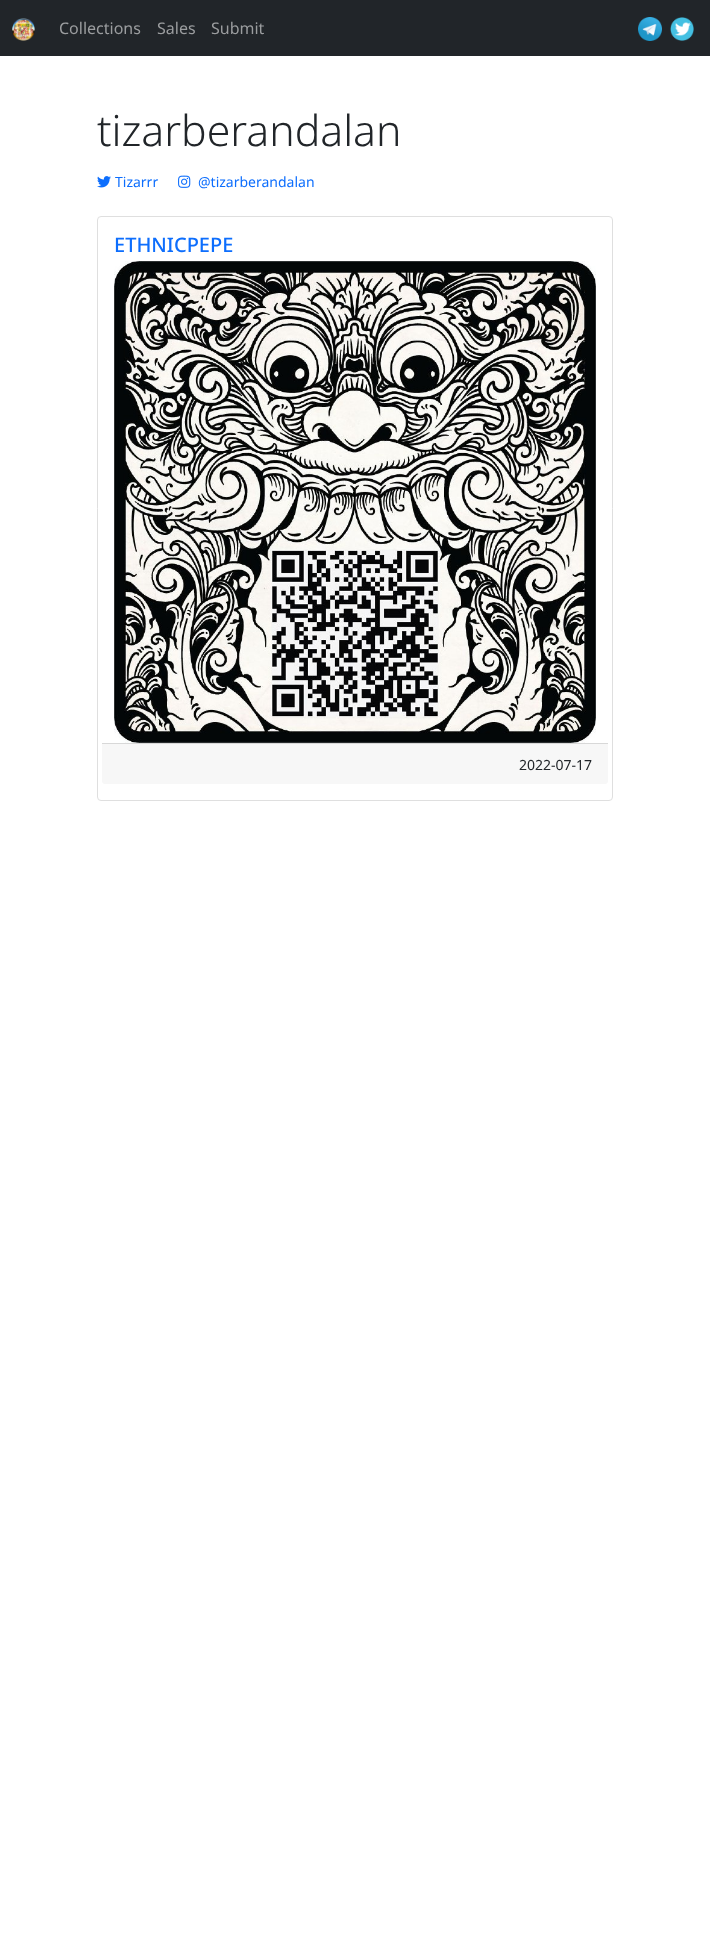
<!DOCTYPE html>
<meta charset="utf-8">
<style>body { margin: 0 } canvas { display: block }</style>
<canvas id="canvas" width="710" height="1935"></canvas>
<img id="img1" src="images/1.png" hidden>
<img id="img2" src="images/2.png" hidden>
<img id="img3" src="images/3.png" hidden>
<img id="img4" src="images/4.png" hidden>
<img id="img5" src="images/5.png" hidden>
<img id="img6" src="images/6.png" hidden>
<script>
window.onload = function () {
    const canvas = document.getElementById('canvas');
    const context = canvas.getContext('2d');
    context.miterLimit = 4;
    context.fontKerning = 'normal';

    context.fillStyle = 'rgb(255, 255, 255)';
    context.fillRect(0, 0, 710, 1935);
    context.fillStyle = 'rgb(33, 37, 41)';
    context.fillRect(0, 0, 710, 56);
    context.drawImage(document.getElementById('img1'), 12, 18, 23, 23);
    context.drawImage(document.getElementById('img2'), 638, 17, 24, 24);
    context.drawImage(document.getElementById('img3'), 670, 17, 24, 24);
    context.drawImage(document.getElementById('img4'), 97, 176, 14, 12);
    context.drawImage(document.getElementById('img5'), 178, 175, 13, 13);
    context.beginPath();
    context.roundRect(97.5, 216.5, 515, 584, 3.5);
    context.strokeStyle = 'rgb(223, 223, 223)';
    context.stroke();
    context.drawImage(document.getElementById('img6'), 114, 261, 482, 482);
    context.fillStyle = 'rgb(247, 247, 247)';
    context.beginPath();
    context.roundRect(102, 743, 506, 41, [0, 0, 3, 3]);
    context.fill();
    context.fillStyle = 'rgb(216, 216, 216)';
    context.fillRect(102, 743, 506, 1);
    context.font = '16px Noto Sans';
    context.fillStyle = 'rgb(155, 157, 159)';
    context.fillText('Collections', 59, 34);
    context.fillText('Sales', 157, 34);
    context.fillText('Submit', 211, 34);
    context.font = '300 42.75px Noto Sans';
    context.fillStyle = 'rgb(33, 37, 41)';
    context.fillText('tizarberandalan', 97, 146);
    context.font = '14px Noto Sans';
    context.fillStyle = 'rgb(13, 110, 253)';
    context.fillText('Tizarrr', 115, 187);
    context.fillText('@tizarberandalan', 198, 187);
    context.font = '500 20px Noto Sans';
    context.fillText('ETHNICPEPE', 114, 252);
    context.font = '14px Noto Sans';
    context.fillStyle = 'rgb(33, 37, 41)';
    context.fillText('2022-07-17', 519, 770);
};
</script>
